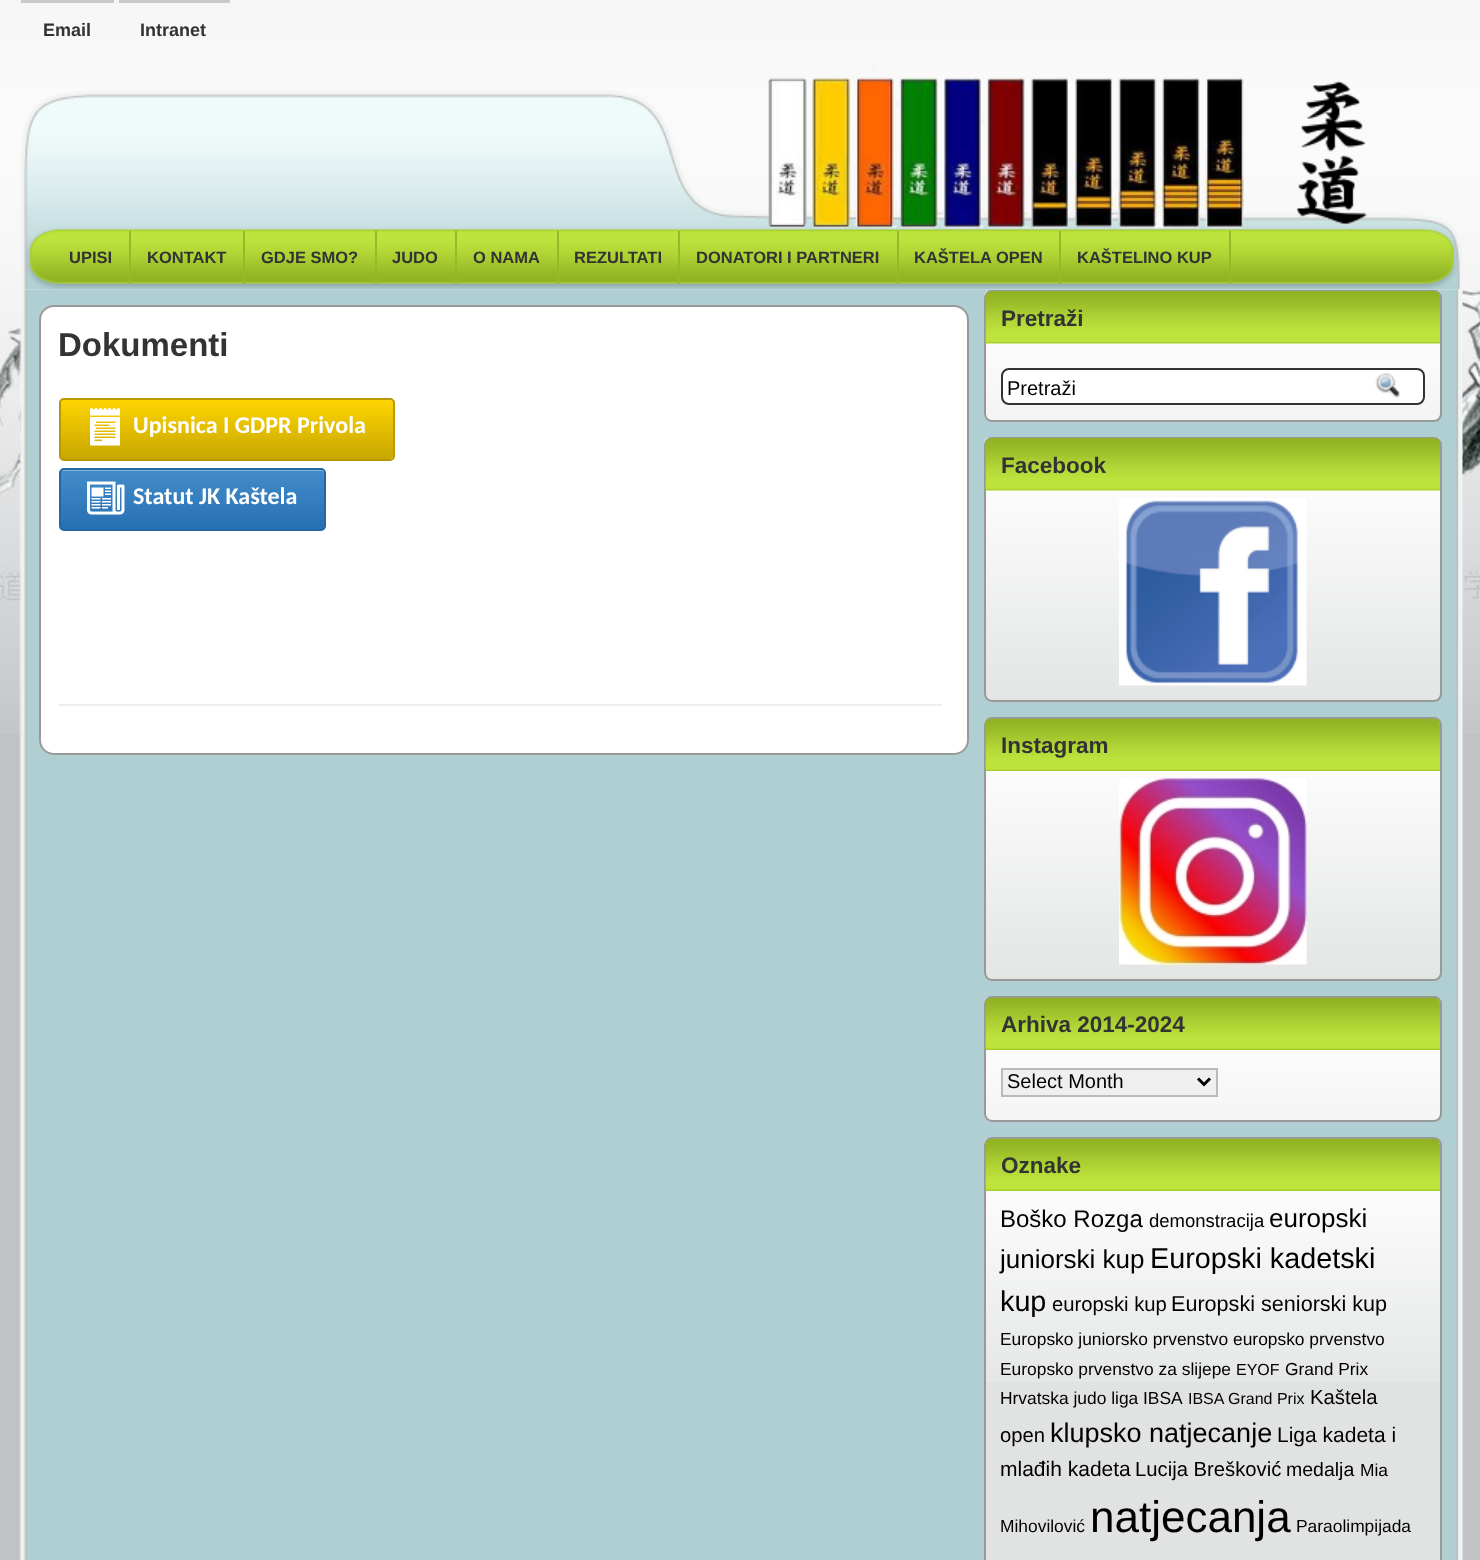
<!DOCTYPE html>
<meta charset="utf-8">
<style>body { margin: 0 } canvas { display: block }</style>
<canvas id="canvas" width="1480" height="1560"></canvas>
<img id="img1" src="images/1.png" hidden>
<img id="img2" src="images/2.png" hidden>
<img id="img3" src="images/3.png" hidden>
<img id="img4" src="images/4.png" hidden>
<img id="img5" src="images/5.png" hidden>
<img id="img6" src="images/6.png" hidden>
<img id="img7" src="images/7.png" hidden>
<img id="img8" src="images/8.png" hidden>
<img id="img9" src="images/9.png" hidden>
<img id="img10" src="images/10.png" hidden>
<img id="img11" src="images/11.png" hidden>
<img id="img12" src="images/12.png" hidden>
<img id="img13" src="images/13.png" hidden>
<img id="img14" src="images/14.png" hidden>
<img id="img15" src="images/15.png" hidden>
<img id="img16" src="images/16.png" hidden>
<img id="img17" src="images/17.png" hidden>
<img id="img18" src="images/18.png" hidden>
<script>
window.onload = function () {
    const canvas = document.getElementById('canvas');
    const context = canvas.getContext('2d');
    context.miterLimit = 4;
    context.fontKerning = 'normal';
    let gradient;

    context.fillStyle = 'rgb(192, 194, 196)';
    context.fillRect(0, 0, 1480, 1560);
    context.drawImage(document.getElementById('img1'), 0, 0, 1480, 734);
    context.drawImage(document.getElementById('img2'), 20, 54, 1442, 236);
    context.fillStyle = 'rgb(200, 201, 201)';
    context.fillRect(21, 0, 93, 3);
    context.fillRect(119, 0, 111, 3);
    context.fillStyle = 'rgb(151, 185, 39)';
    context.fillRect(129, 231, 2, 53);
    context.fillRect(243, 231, 2, 53);
    context.fillRect(375, 231, 2, 53);
    context.fillRect(455, 231, 2, 53);
    context.fillRect(557, 231, 2, 53);
    context.fillRect(678, 231, 2, 53);
    context.fillRect(897, 231, 2, 53);
    context.fillRect(1059, 231, 2, 53);
    context.fillRect(1229, 231, 2, 53);
    context.drawImage(document.getElementById('img3'), 19, 289, 1444, 1271);
    context.fillStyle = 'rgb(255, 255, 255)';
    context.beginPath();
    context.roundRect(40, 306, 928, 448, 14);
    context.fill();
    context.strokeStyle = 'rgb(153, 153, 153)';
    context.lineWidth = 2;
    context.stroke();
    context.fillStyle = 'rgb(238, 238, 238)';
    context.fillRect(59, 704, 883, 2);
    gradient = context.createLinearGradient(227, 399, 227, 459);
    gradient.addColorStop(0, 'rgb(255, 213, 0)');
    gradient.addColorStop(1, 'rgb(199, 166, 0)');
    context.fillStyle = gradient;
    context.beginPath();
    context.roundRect(60, 399, 333, 60, 3);
    context.fill();
    context.fillStyle = 'rgb(248, 221, 84)';
    context.beginPath();
    context.moveTo(63, 400);
    context.lineTo(390, 400);
    context.bezierCurveTo(392, 400, 393, 402, 393, 404);
    context.lineTo(393, 402);
    context.bezierCurveTo(393, 400, 392, 399, 390, 399);
    context.lineTo(63, 399);
    context.bezierCurveTo(61, 399, 60, 400, 60, 402);
    context.lineTo(60, 404);
    context.bezierCurveTo(60, 402, 61, 400, 63, 400);
    context.closePath();
    context.fill();
    context.beginPath();
    context.roundRect(60, 399, 334, 61, 4);
    context.strokeStyle = 'rgb(184, 153, 0)';
    context.stroke();
    context.drawImage(document.getElementById('img4'), 90, 408, 30, 38);
    gradient = context.createLinearGradient(192, 470, 192, 530);
    gradient.addColorStop(0, 'rgb(68, 140, 203)');
    gradient.addColorStop(1, 'rgb(37, 112, 178)');
    context.fillStyle = gradient;
    context.beginPath();
    context.roundRect(60, 470, 264, 60, 3);
    context.fill();
    context.fillStyle = 'rgb(134, 176, 213)';
    context.beginPath();
    context.moveTo(63, 471);
    context.lineTo(321, 471);
    context.bezierCurveTo(323, 471, 324, 472, 324, 474);
    context.lineTo(324, 473);
    context.bezierCurveTo(324, 471, 323, 470, 321, 470);
    context.lineTo(63, 470);
    context.bezierCurveTo(61, 470, 60, 471, 60, 473);
    context.lineTo(60, 474);
    context.bezierCurveTo(60, 472, 61, 471, 63, 471);
    context.closePath();
    context.fill();
    context.beginPath();
    context.roundRect(60, 469, 265, 61, 4);
    context.strokeStyle = 'rgb(34, 104, 165)';
    context.stroke();
    context.drawImage(document.getElementById('img5'), 87, 481, 38, 34);
    context.drawImage(document.getElementById('img6'), 984, 291, 458, 131);
    context.beginPath();
    context.roundRect(985, 291, 456, 130, 7);
    context.strokeStyle = 'rgb(153, 153, 153)';
    context.stroke();
    context.drawImage(document.getElementById('img7'), 985, 291, 455, 53);
    context.fillStyle = 'rgb(255, 255, 255)';
    context.beginPath();
    context.roundRect(1002, 369, 422, 35, 7);
    context.fill();
    context.strokeStyle = 'rgb(51, 51, 51)';
    context.stroke();
    context.drawImage(document.getElementById('img8'), 1375, 373, 25, 25);
    context.drawImage(document.getElementById('img9'), 984, 438, 458, 264);
    context.beginPath();
    context.roundRect(985, 438, 456, 263, 7);
    context.strokeStyle = 'rgb(153, 153, 153)';
    context.stroke();
    context.drawImage(document.getElementById('img10'), 985, 438, 455, 53);
    context.drawImage(document.getElementById('img11'), 1119, 498, 188, 188);
    context.drawImage(document.getElementById('img12'), 984, 718, 458, 263);
    context.beginPath();
    context.roundRect(985, 718, 456, 262, 7);
    context.stroke();
    context.drawImage(document.getElementById('img13'), 985, 718, 455, 53);
    context.drawImage(document.getElementById('img14'), 1119, 778, 188, 187);
    context.drawImage(document.getElementById('img15'), 984, 997, 458, 125);
    context.beginPath();
    context.roundRect(985, 997, 456, 124, 7);
    context.stroke();
    context.drawImage(document.getElementById('img16'), 985, 997, 455, 53);
    context.fillStyle = 'rgb(239, 239, 239)';
    context.beginPath();
    context.rect(1002, 1069, 215, 27);
    context.fill();
    context.strokeStyle = 'rgb(187, 187, 187)';
    context.stroke();
    context.beginPath();
    context.moveTo(1198, 1078.5);
    context.lineTo(1204, 1084.5);
    context.lineTo(1210, 1078.5);
    context.strokeStyle = 'rgb(0, 0, 0)';
    context.lineWidth = 3;
    context.stroke();
    context.fillStyle = 'rgb(225, 227, 227)';
    context.beginPath();
    context.roundRect(984, 1137, 458, 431, 8);
    context.fill();
    context.drawImage(document.getElementById('img17'), 984, 1138, 458, 244);
    context.beginPath();
    context.roundRect(985, 1138, 456, 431, 7);
    context.strokeStyle = 'rgb(153, 153, 153)';
    context.lineWidth = 2;
    context.stroke();
    context.drawImage(document.getElementById('img18'), 985, 1138, 455, 53);
    context.font = 'bold 18px Liberation Sans';
    context.fillStyle = 'rgb(51, 51, 51)';
    context.fillText('Email', 43, 36);
    context.fillText('Intranet', 140, 36);
    context.font = 'bold 16.5px Liberation Sans';
    context.fillText('UPISI', 69, 263);
    context.fillText('KONTAKT', 147, 263);
    context.fillText('GDJE SMO?', 261, 263);
    context.fillText('JUDO', 392, 263);
    context.fillText('O NAMA', 473, 263);
    context.fillText('REZULTATI', 574, 263);
    context.fillText('DONATORI I PARTNERI', 696, 263);
    context.fillText('KAŠTELA OPEN', 914, 263);
    context.fillText('KAŠTELINO KUP', 1077, 263);
    context.font = 'bold 33px Liberation Sans';
    context.fillText('Dokumenti', 58, 356);
    context.font = 'bold 24px Carlito';
    context.fillStyle = 'rgb(255, 255, 255)';
    context.fillText('Upisnica I GDPR Privola', 133, 433);
    context.fillText('Statut JK Kaštela', 133, 504);
    context.font = 'bold 22.5px Liberation Sans';
    context.fillStyle = 'rgb(51, 51, 51)';
    context.fillText('Pretraži', 1001, 326);
    context.font = '20px Liberation Sans';
    context.fillStyle = 'rgb(0, 0, 0)';
    context.fillText('Pretraži', 1007, 395);
    context.font = 'bold 22.5px Liberation Sans';
    context.fillStyle = 'rgb(51, 51, 51)';
    context.fillText('Facebook', 1001, 473);
    context.fillText('Instagram', 1001, 753);
    context.fillText('Arhiva 2014-2024', 1001, 1032);
    context.font = '20px Liberation Sans';
    context.fillStyle = 'rgb(0, 0, 0)';
    context.fillText('Select Month', 1007, 1088);
    context.font = 'bold 22.5px Liberation Sans';
    context.fillStyle = 'rgb(51, 51, 51)';
    context.fillText('Oznake', 1001, 1173);
    context.font = '24px Liberation Sans';
    context.fillStyle = 'rgb(0, 0, 0)';
    context.fillText('Boško Rozga', 1000, 1227);
    context.font = '18.5px Liberation Sans';
    context.fillText('demonstracija', 1149, 1227);
    context.font = '26px Liberation Sans';
    context.fillText('europski', 1269, 1227);
    context.fillText('juniorski kup', 1000, 1268);
    context.font = '28.75px Liberation Sans';
    context.fillText('Europski kadetski', 1150, 1268);
    context.fillText('kup', 1000, 1311);
    context.font = '20.25px Liberation Sans';
    context.fillText('europski kup', 1052, 1311);
    context.font = '21.6px Liberation Sans';
    context.fillText('Europski seniorski kup', 1171, 1311);
    context.font = '17.4px Liberation Sans';
    context.fillText('Europsko juniorsko prvenstvo', 1000, 1345);
    context.fillText('europsko prvenstvo', 1233, 1345);
    context.fillText('Europsko prvenstvo za slijepe', 1000, 1375);
    context.font = '16px Liberation Sans';
    context.fillText('EYOF', 1236, 1375);
    context.font = '17.4px Liberation Sans';
    context.fillText('Grand Prix', 1285, 1375);
    context.fillText('Hrvatska judo liga', 1000, 1404);
    context.fillText('IBSA', 1143, 1404);
    context.font = '16px Liberation Sans';
    context.fillText('IBSA Grand Prix', 1188, 1404);
    context.font = '20.25px Liberation Sans';
    context.fillText('Kaštela', 1310, 1404);
    context.fillText('open', 1000, 1442);
    context.font = '27px Liberation Sans';
    context.fillText('klupsko natjecanje', 1050, 1442);
    context.font = '21px Liberation Sans';
    context.fillText('Liga kadeta i', 1277, 1442);
    context.fillText('mlađih kadeta', 1000, 1476);
    context.font = '20.25px Liberation Sans';
    context.fillText('Lucija Brešković', 1135, 1476);
    context.font = '19.5px Liberation Sans';
    context.fillText('medalja', 1286, 1476);
    context.font = '17.4px Liberation Sans';
    context.fillText('Mia', 1360, 1476);
    context.fillText('Mihovilović', 1000, 1532);
    context.font = '44px Liberation Sans';
    context.fillText('natjecanja', 1090, 1532);
    context.font = '17.4px Liberation Sans';
    context.fillText('Paraolimpijada', 1296, 1532);
};
</script>
